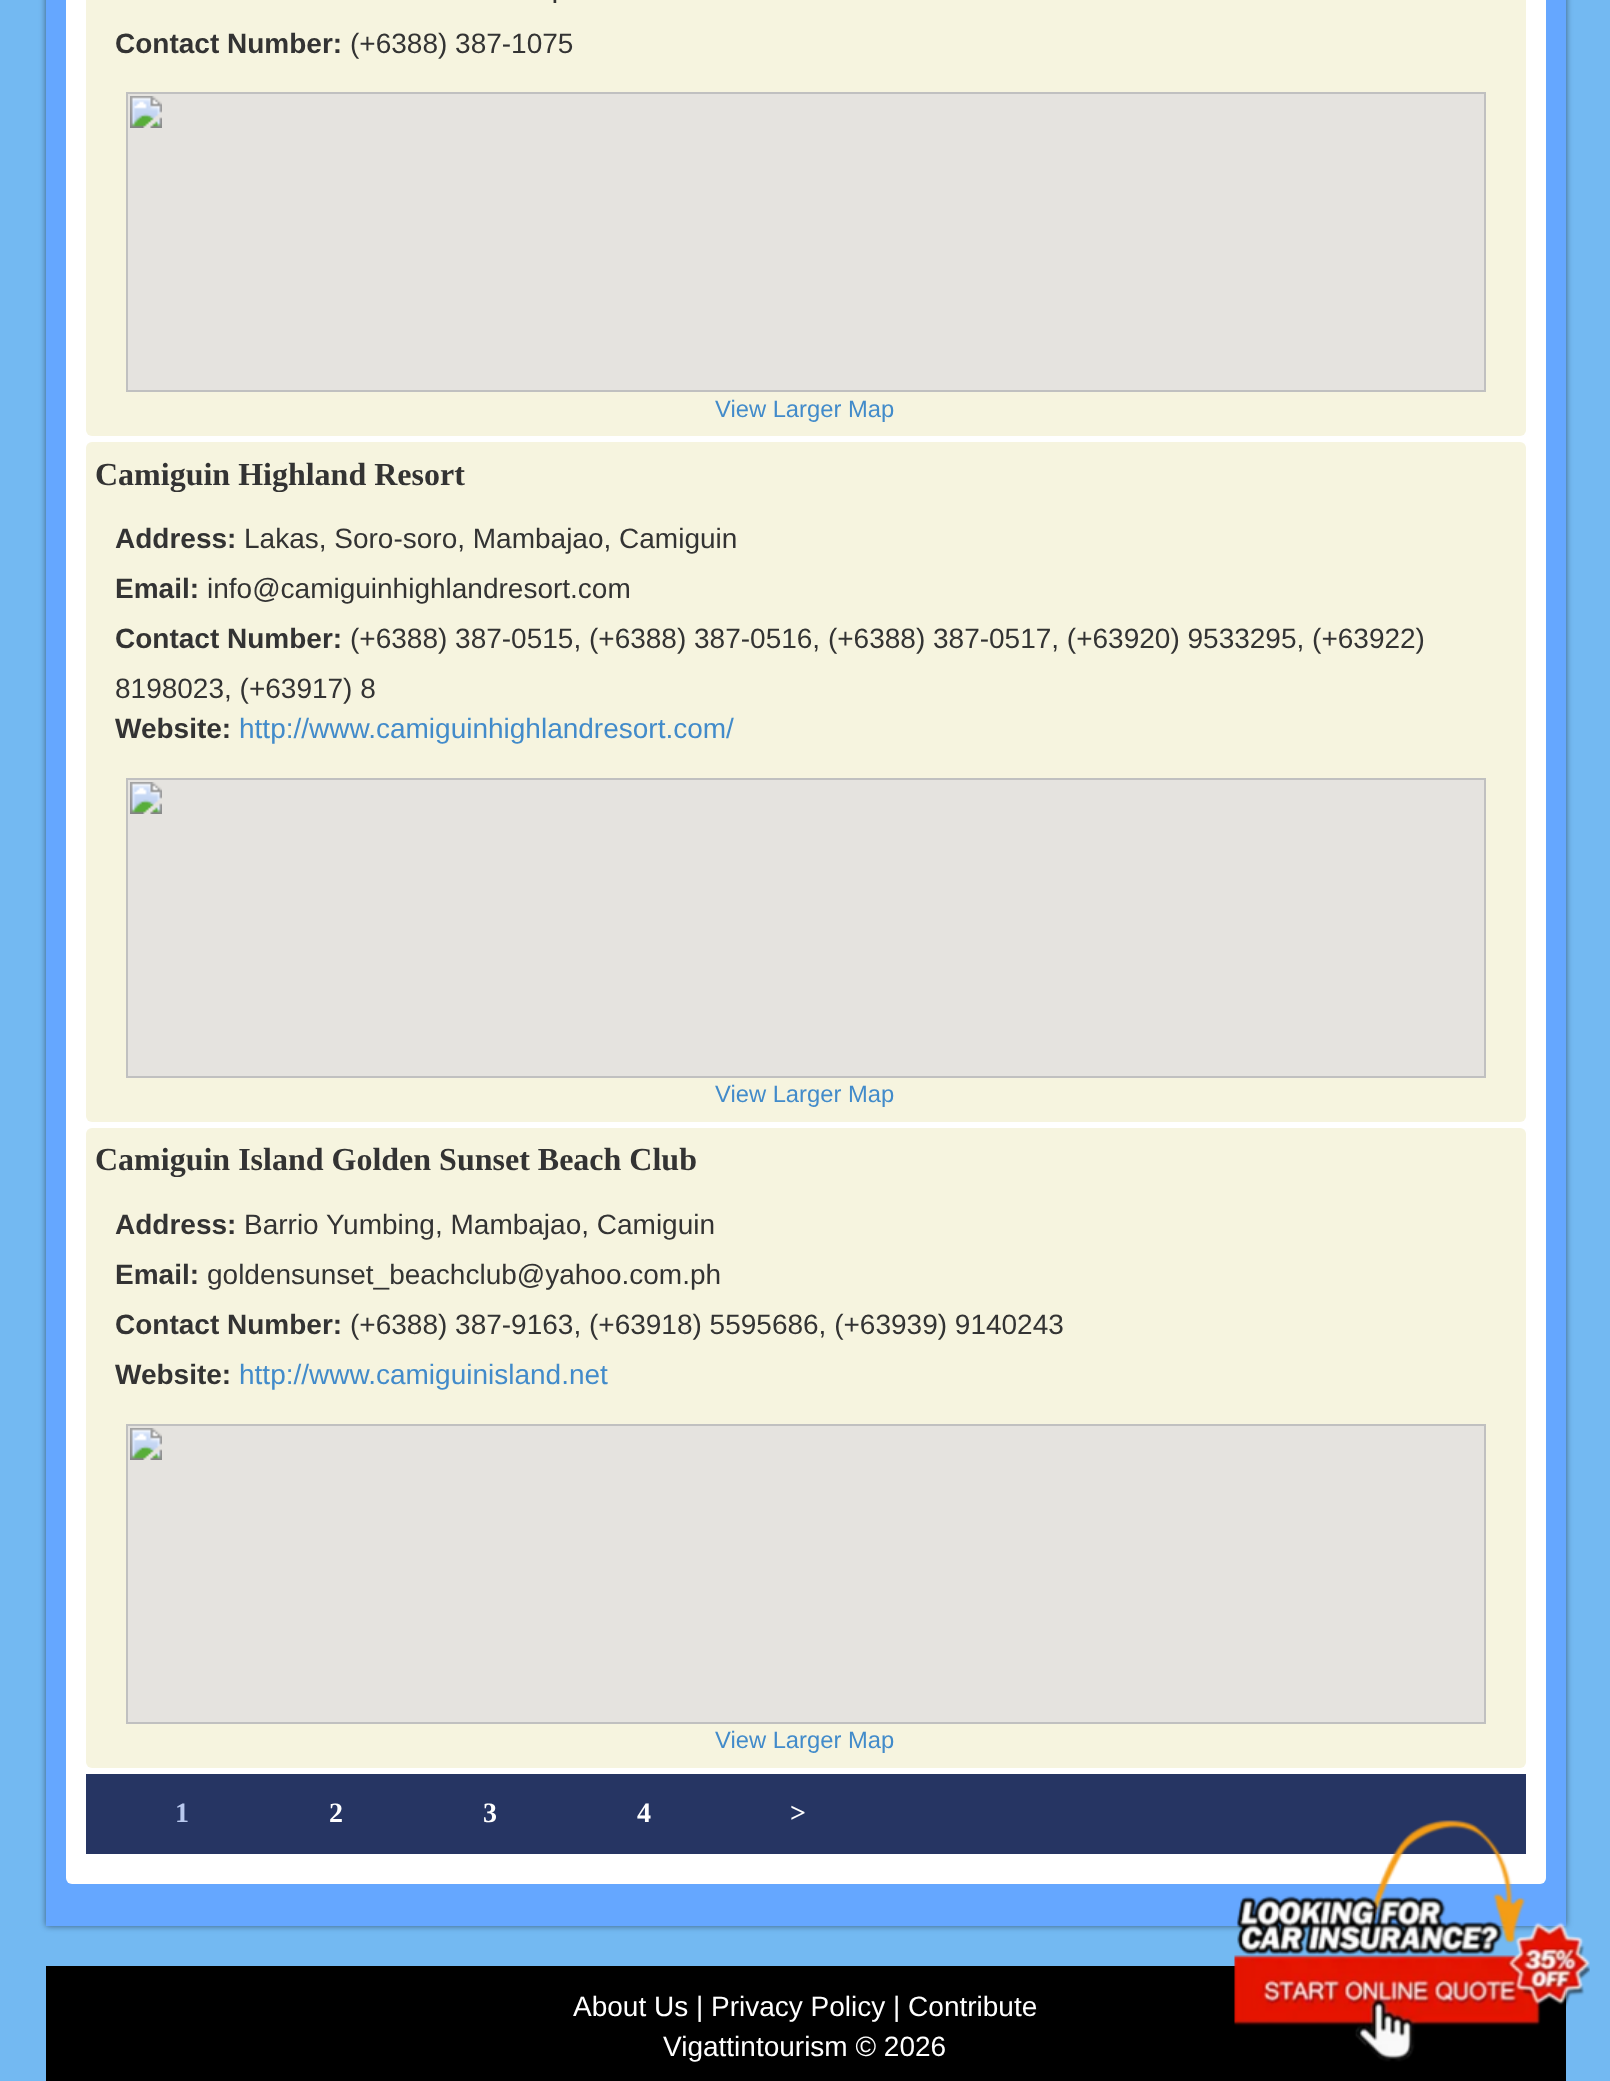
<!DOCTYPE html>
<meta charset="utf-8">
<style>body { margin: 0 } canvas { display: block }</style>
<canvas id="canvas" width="1610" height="2081"></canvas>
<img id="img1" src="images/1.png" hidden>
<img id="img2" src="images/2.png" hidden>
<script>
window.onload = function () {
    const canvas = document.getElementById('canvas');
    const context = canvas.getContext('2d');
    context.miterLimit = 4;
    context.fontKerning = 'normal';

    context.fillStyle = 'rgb(115, 185, 242)';
    context.fillRect(0, 0, 1610, 2081);
    context.fillStyle = 'rgba(0, 0, 0, 0.5)';
    context.filter = 'blur(3px)';
    context.beginPath();
    context.rect(46, -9, 1520, 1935);
    context.fill();
    context.filter = 'none';
    context.fillStyle = 'rgb(101, 167, 255)';
    context.fillRect(46, 0, 1520, 1926);
    context.fillStyle = 'rgb(255, 255, 255)';
    context.beginPath();
    context.roundRect(66, -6, 1480, 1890, 6);
    context.fill();
    context.fillStyle = 'rgb(246, 244, 223)';
    context.beginPath();
    context.roundRect(86, -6, 1440, 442, 6);
    context.fill();
    context.drawImage(document.getElementById('img1'), 126, 92, 1360, 300);
    context.beginPath();
    context.roundRect(86, 442, 1440, 680, 6);
    context.fill();
    context.drawImage(document.getElementById('img1'), 126, 778, 1360, 300);
    context.beginPath();
    context.roundRect(86, 1128, 1440, 640, 6);
    context.fill();
    context.drawImage(document.getElementById('img1'), 126, 1424, 1360, 300);
    context.fillStyle = 'rgb(38, 53, 99)';
    context.fillRect(86, 1774, 1440, 80);
    context.fillStyle = 'rgb(0, 0, 0)';
    context.fillRect(46, 1966, 1520, 115);
    context.drawImage(document.getElementById('img2'), 1234, 1820, 356, 242);
    context.font = '28px Liberation Sans';
    context.fillStyle = 'rgb(51, 51, 51)';
    context.fillText('.', 551, 3);
    context.font = 'bold 28px Liberation Sans';
    context.fillText('Contact Number:', 115, 53);
    context.font = '28px Liberation Sans';
    context.fillText('(+6388) 387-1075', 350, 53);
    context.font = '23.75px Liberation Sans';
    context.fillStyle = 'rgb(66, 139, 202)';
    context.fillText('View Larger Map', 715, 417);
    context.font = 'bold 32px Liberation Serif';
    context.fillStyle = 'rgb(51, 51, 51)';
    context.fillText('Camiguin Highland Resort', 95, 485);
    context.font = 'bold 28px Liberation Sans';
    context.fillText('Address:', 115, 548);
    context.font = '28px Liberation Sans';
    context.fillText('Lakas, Soro-soro, Mambajao, Camiguin', 244, 548);
    context.font = 'bold 28px Liberation Sans';
    context.fillText('Email:', 115, 598);
    context.font = '28px Liberation Sans';
    context.fillText('info@camiguinhighlandresort.com', 207, 598);
    context.font = 'bold 28px Liberation Sans';
    context.fillText('Contact Number:', 115, 648);
    context.font = '28px Liberation Sans';
    context.fillText('(+6388) 387-0515, (+6388) 387-0516, (+6388) 387-0517, (+63920) 9533295, (+63922)', 350, 648);
    context.fillText('8198023, (+63917) 8', 115, 698);
    context.font = 'bold 28px Liberation Sans';
    context.fillText('Website:', 115, 738);
    context.font = '28px Liberation Sans';
    context.fillStyle = 'rgb(66, 139, 202)';
    context.fillText('http://www.camiguinhighlandresort.com/', 239, 738);
    context.font = '23.75px Liberation Sans';
    context.fillText('View Larger Map', 715, 1102);
    context.font = 'bold 32px Liberation Serif';
    context.fillStyle = 'rgb(51, 51, 51)';
    context.fillText('Camiguin Island Golden Sunset Beach Club', 95, 1170);
    context.font = 'bold 28px Liberation Sans';
    context.fillText('Address:', 115, 1234);
    context.font = '28px Liberation Sans';
    context.fillText('Barrio Yumbing, Mambajao, Camiguin', 244, 1234);
    context.font = 'bold 28px Liberation Sans';
    context.fillText('Email:', 115, 1284);
    context.font = '28px Liberation Sans';
    context.fillText('goldensunset_beachclub@yahoo.com.ph', 207, 1284);
    context.font = 'bold 28px Liberation Sans';
    context.fillText('Contact Number:', 115, 1334);
    context.font = '28px Liberation Sans';
    context.fillText('(+6388) 387-9163, (+63918) 5595686, (+63939) 9140243', 350, 1334);
    context.font = 'bold 28px Liberation Sans';
    context.fillText('Website:', 115, 1384);
    context.font = '28px Liberation Sans';
    context.fillStyle = 'rgb(66, 139, 202)';
    context.fillText('http://www.camiguinisland.net', 239, 1384);
    context.font = '23.75px Liberation Sans';
    context.fillText('View Larger Map', 715, 1748);
    context.font = 'bold 28px Liberation Serif';
    context.fillStyle = 'rgb(185, 201, 239)';
    context.fillText('1', 175, 1822);
    context.fillStyle = 'rgb(255, 255, 255)';
    context.fillText('2', 329, 1822);
    context.fillText('3', 483, 1822);
    context.fillText('4', 637, 1822);
    context.fillText('>', 790, 1822);
    context.font = '28px Liberation Sans';
    context.fillText('About Us | Privacy Policy | Contribute', 573, 2016);
    context.fillText('Vigattintourism © 2026', 663, 2056);
};
</script>
